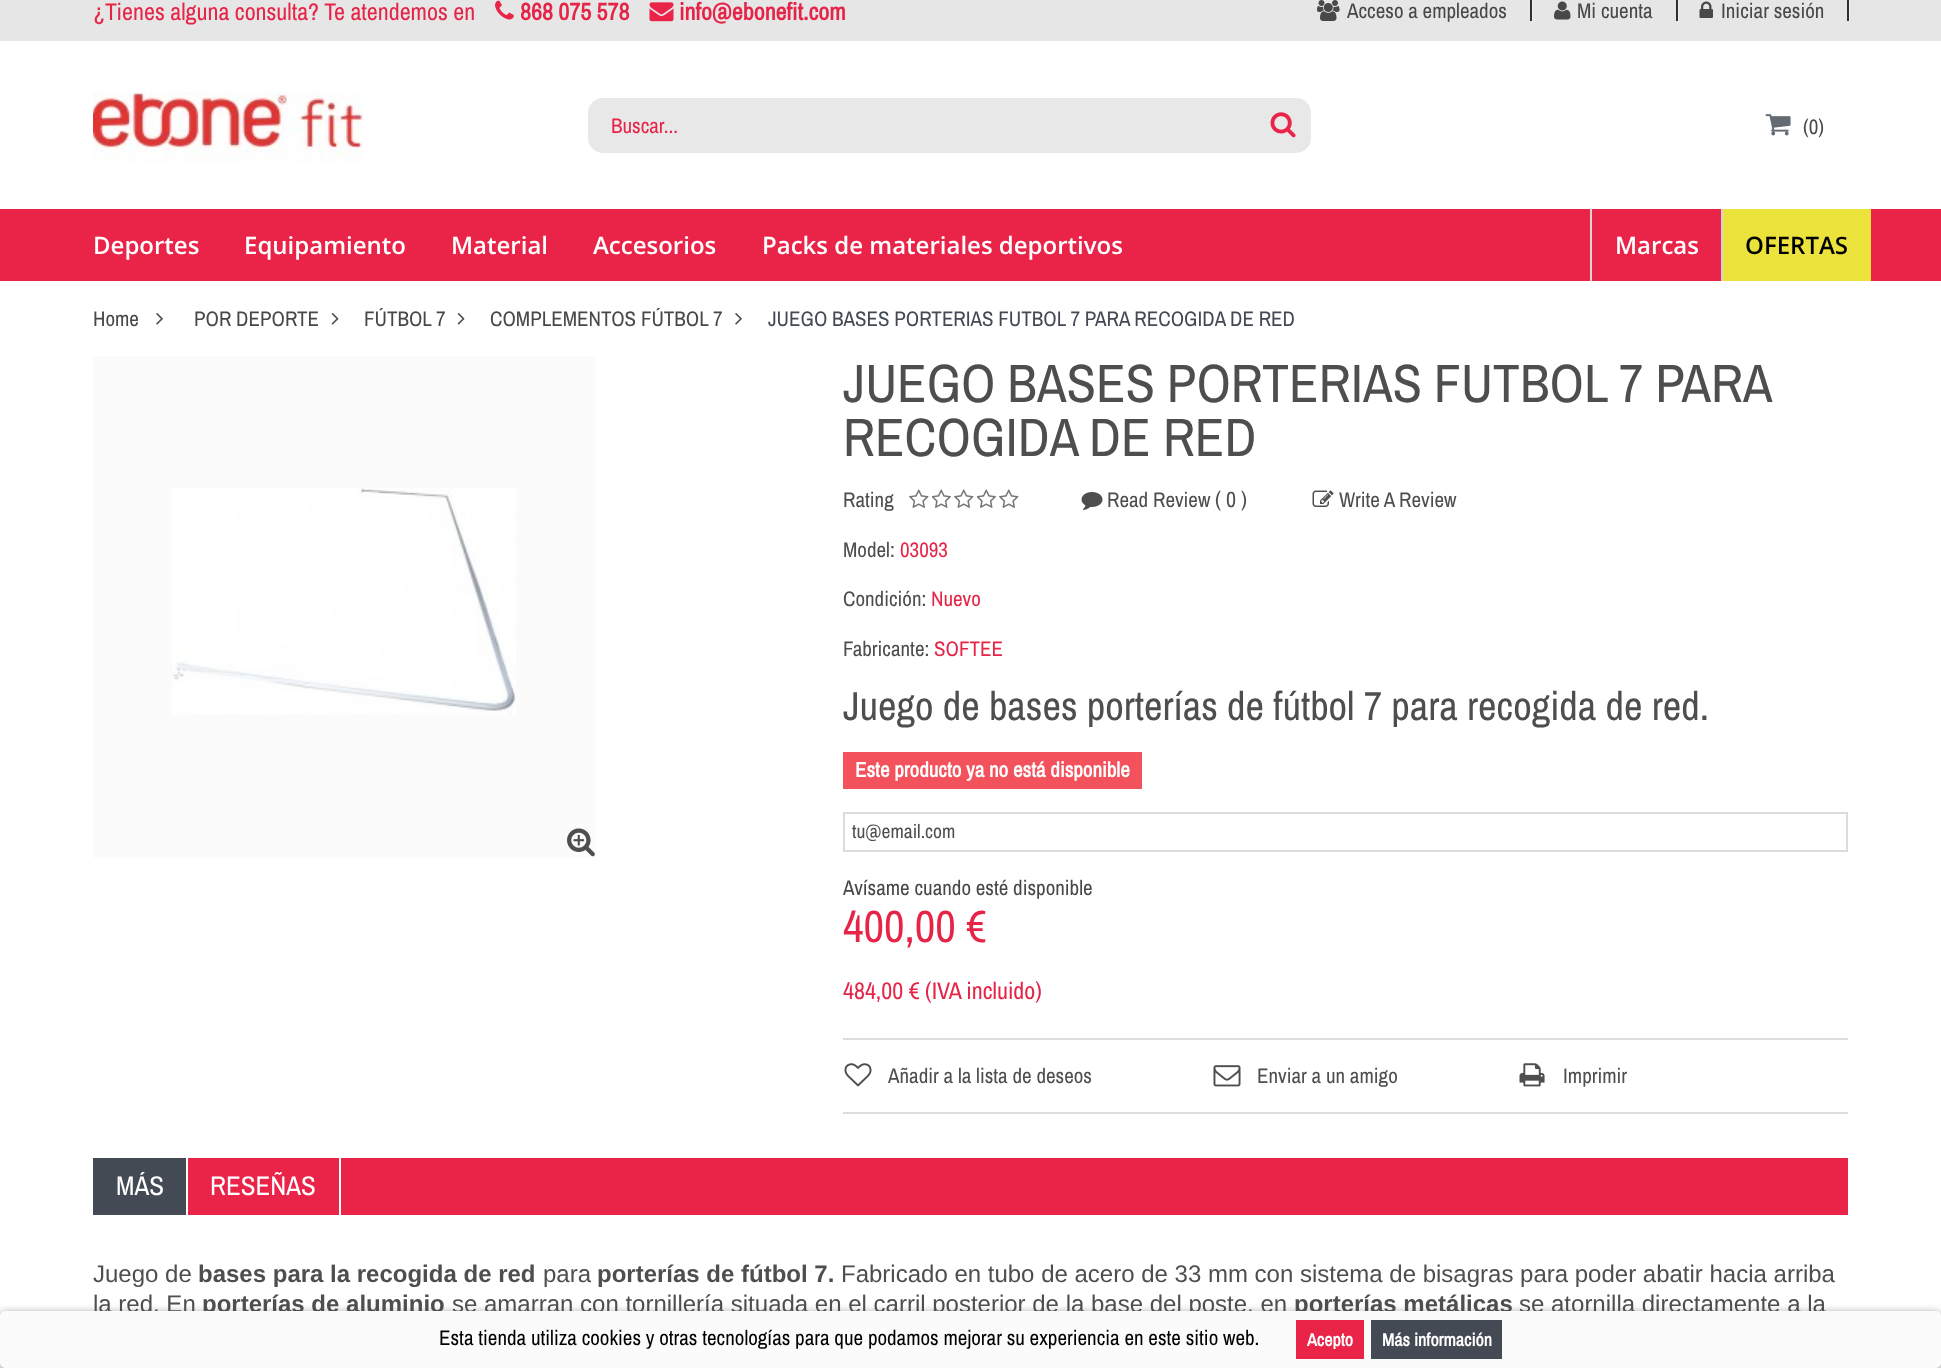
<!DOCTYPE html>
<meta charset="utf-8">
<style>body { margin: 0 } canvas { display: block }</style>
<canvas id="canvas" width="1941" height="1368"></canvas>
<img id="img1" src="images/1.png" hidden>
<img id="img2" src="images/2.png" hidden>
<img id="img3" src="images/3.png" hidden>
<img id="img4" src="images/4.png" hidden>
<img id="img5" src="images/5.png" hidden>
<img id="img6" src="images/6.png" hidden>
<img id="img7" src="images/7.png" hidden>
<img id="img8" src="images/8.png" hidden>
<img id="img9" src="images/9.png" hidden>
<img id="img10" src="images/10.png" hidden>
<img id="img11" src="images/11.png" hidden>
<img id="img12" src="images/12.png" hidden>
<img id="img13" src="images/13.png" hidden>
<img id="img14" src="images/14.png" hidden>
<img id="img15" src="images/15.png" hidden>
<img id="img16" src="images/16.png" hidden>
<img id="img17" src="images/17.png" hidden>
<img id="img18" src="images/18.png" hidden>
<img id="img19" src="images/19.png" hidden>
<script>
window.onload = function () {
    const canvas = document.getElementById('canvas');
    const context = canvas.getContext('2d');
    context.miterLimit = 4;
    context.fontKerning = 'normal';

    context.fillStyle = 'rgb(255, 255, 255)';
    context.fillRect(0, 0, 1941, 1368);
    context.fillStyle = 'rgb(230, 230, 230)';
    context.fillRect(0, 0, 1941, 41);
    context.fillStyle = 'rgb(46, 46, 46)';
    context.fillRect(1847, 0, 1, 21);
    context.fillRect(1676, 0, 1, 21);
    context.drawImage(document.getElementById('img1'), 495, 0, 19, 20);
    context.drawImage(document.getElementById('img2'), 649, 2, 25, 20);
    context.fillStyle = 'rgb(240, 240, 240)';
    context.fillRect(1532, 0, 1, 21);
    context.fillStyle = 'rgb(46, 46, 46)';
    context.fillRect(1530, 0, 2, 21);
    context.drawImage(document.getElementById('img3'), 1317, 0, 23, 21);
    context.fillStyle = 'rgb(240, 240, 240)';
    context.fillRect(1678, 0, 1, 21);
    context.fillStyle = 'rgb(48, 48, 48)';
    context.fillRect(1677, 0, 1, 21);
    context.drawImage(document.getElementById('img4'), 1554, 1, 17, 19);
    context.fillStyle = 'rgb(240, 240, 240)';
    context.fillRect(1849, 0, 1, 21);
    context.fillStyle = 'rgb(48, 48, 48)';
    context.fillRect(1848, 0, 1, 21);
    context.drawImage(document.getElementById('img5'), 1699, 1, 14, 17);
    context.drawImage(document.getElementById('img6'), 93, 92, 270, 71);
    context.fillStyle = 'rgb(232, 232, 232)';
    context.beginPath();
    context.roundRect(588, 98, 668, 55, [15, 0, 0, 15]);
    context.fill();
    context.beginPath();
    context.roundRect(1256, 98, 55, 55, [0, 15, 15, 0]);
    context.fill();
    context.drawImage(document.getElementById('img7'), 1270, 112, 26, 26);
    context.drawImage(document.getElementById('img8'), 1765, 114, 26, 22);
    context.fillStyle = 'rgb(135, 135, 135)';
    context.filter = 'blur(4px)';
    context.beginPath();
    context.roundRect(0, 1313, 1941, 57, 5);
    context.fill();
    context.filter = 'none';
    context.fillStyle = 'rgb(234, 35, 73)';
    context.fillRect(0, 209, 1941, 72);
    context.fillStyle = 'rgb(214, 212, 212)';
    context.fillRect(1590, 209, 2, 72);
    context.fillStyle = 'rgb(235, 226, 59)';
    context.fillRect(1723, 209, 148, 72);
    context.fillStyle = 'rgb(214, 212, 212)';
    context.fillRect(1721, 209, 2, 72);
    context.drawImage(document.getElementById('img9'), 156, 313, 7, 12);
    context.drawImage(document.getElementById('img10'), 331, 313, 8, 12);
    context.drawImage(document.getElementById('img10'), 457, 313, 8, 12);
    context.drawImage(document.getElementById('img9'), 735, 313, 7, 12);
    context.fillStyle = 'rgb(251, 251, 251)';
    context.fillRect(93, 356, 503, 502);
    context.drawImage(document.getElementById('img11'), 172, 488, 344, 227);
    context.drawImage(document.getElementById('img12'), 567, 828, 28, 29);
    context.drawImage(document.getElementById('img13'), 909, 489, 20, 19);
    context.drawImage(document.getElementById('img14'), 932, 489, 19, 19);
    context.drawImage(document.getElementById('img13'), 954, 489, 20, 19);
    context.drawImage(document.getElementById('img14'), 977, 489, 19, 19);
    context.drawImage(document.getElementById('img13'), 999, 489, 20, 19);
    context.drawImage(document.getElementById('img15'), 1081, 492, 22, 18);
    context.drawImage(document.getElementById('img16'), 1312, 490, 22, 17);
    context.fillStyle = 'rgb(243, 81, 92)';
    context.fillRect(843, 752, 299, 37);
    context.strokeStyle = 'rgb(220, 220, 220)';
    context.lineWidth = 2;
    context.strokeRect(844, 813, 1003, 38);
    context.fillStyle = 'rgb(220, 220, 220)';
    context.fillRect(843, 1038, 1005, 2);
    context.fillRect(843, 1112, 1005, 2);
    context.drawImage(document.getElementById('img17'), 844, 1063, 28, 24);
    context.drawImage(document.getElementById('img18'), 1213, 1065, 28, 22);
    context.drawImage(document.getElementById('img19'), 1519, 1063, 26, 24);
    context.fillStyle = 'rgb(234, 35, 73)';
    context.fillRect(188, 1158, 1660, 57);
    context.fillStyle = 'rgb(67, 74, 84)';
    context.fillRect(93, 1158, 93, 57);
    context.fillStyle = 'rgb(255, 255, 255)';
    context.fillRect(339, 1158, 2, 57);
    context.font = '24px Archivo Narrow';
    context.fillStyle = 'rgb(230, 36, 71)';
    context.fillText('¿Tienes alguna consulta? Te atendemos en', 93, 20);
    context.font = 'bold 24px Archivo Narrow';
    context.fillText('868 075 578', 520, 20);
    context.fillText('info@ebonefit.com', 679, 20);
    context.font = '21px Archivo Narrow';
    context.fillStyle = 'rgb(72, 72, 72)';
    context.fillText('Acceso a empleados', 1347, 18);
    context.fillText('Mi cuenta', 1577, 18);
    context.fillText('Iniciar sesión', 1721, 18);
    context.fillStyle = 'rgb(230, 36, 71)';
    context.fillText('Buscar...', 611, 133);
    context.fillStyle = 'rgb(72, 72, 72)';
    context.fillText('(0)', 1803, 134);
    context.font = '600 24px Open Sans';
    context.fillStyle = 'rgb(255, 255, 255)';
    context.fillText('Deportes', 93, 254);
    context.fillText('Equipamiento', 244, 254);
    context.fillText('Material', 451, 254);
    context.fillText('Accesorios', 593, 254);
    context.fillText('Packs de materiales deportivos', 762, 254);
    context.fillText('Marcas', 1615, 254);
    context.fillStyle = 'rgb(0, 0, 0)';
    context.fillText('OFERTAS', 1745, 254);
    context.font = '21px Archivo Narrow';
    context.fillStyle = 'rgb(72, 72, 72)';
    context.fillText('Home', 93, 326);
    context.fillText('POR DEPORTE', 194, 326);
    context.fillText('FÚTBOL 7', 364, 326);
    context.fillText('COMPLEMENTOS FÚTBOL 7', 490, 326);
    context.fillStyle = 'rgb(67, 74, 84)';
    context.fillText('JUEGO BASES PORTERIAS FUTBOL 7 PARA RECOGIDA DE RED', 768, 326);
    context.wordSpacing = '-0.5px';
    context.font = '54px Archivo Narrow';
    context.fillStyle = 'rgb(78, 78, 78)';
    context.fillText('JUEGO BASES PORTERIAS FUTBOL 7 PARA', 843, 402);
    context.wordSpacing = '0px';
    context.fillText('RECOGIDA DE RED', 843, 456);
    context.font = '21px Archivo Narrow';
    context.fillText('Rating', 843, 507);
    context.fillText('Read Review', 1107, 507);
    context.font = '22px Archivo Narrow';
    context.fillText('( 0 )', 1215, 507);
    context.font = '21px Archivo Narrow';
    context.fillText('Write A Review', 1339, 507);
    context.fillText('Model:', 843, 557);
    context.fillStyle = 'rgb(230, 36, 71)';
    context.fillText('03093', 900, 557);
    context.fillStyle = 'rgb(78, 78, 78)';
    context.fillText('Condición:', 843, 606);
    context.fillStyle = 'rgb(230, 36, 71)';
    context.fillText('Nuevo', 931, 606);
    context.fillStyle = 'rgb(78, 78, 78)';
    context.fillText('Fabricante:', 843, 656);
    context.fillStyle = 'rgb(230, 36, 71)';
    context.fillText('SOFTEE', 934, 656);
    context.font = '40.5px Archivo Narrow';
    context.fillStyle = 'rgb(78, 78, 78)';
    context.fillText('Juego de bases porterías de fútbol 7 para recogida de red.', 843, 720);
    context.font = 'bold 21px Archivo Narrow';
    context.fillStyle = 'rgb(255, 255, 255)';
    context.fillText('Este producto ya no está disponible', 855, 777);
    context.font = '19.5px Archivo Narrow';
    context.fillStyle = 'rgb(78, 78, 78)';
    context.fillText('tu@email.com', 852, 838);
    context.font = '21px Archivo Narrow';
    context.fillStyle = 'rgb(72, 72, 72)';
    context.fillText('Avísame cuando esté disponible', 843, 895);
    context.font = '45px Archivo Narrow';
    context.fillStyle = 'rgb(230, 36, 71)';
    context.fillText('400,00 €', 843, 942);
    context.font = '24px Archivo Narrow';
    context.fillText('484,00 € (IVA incluido)', 843, 999);
    context.font = '21px Archivo Narrow';
    context.fillStyle = 'rgb(78, 78, 78)';
    context.fillText('Añadir a la lista de deseos', 888, 1083);
    context.fillText('Enviar a un amigo', 1257, 1083);
    context.fillText('Imprimir', 1563, 1083);
    context.font = '27px Archivo Narrow';
    context.fillStyle = 'rgb(255, 255, 255)';
    context.fillText('MÁS', 116, 1195);
    context.fillText('RESEÑAS', 210, 1195);
    context.font = '24px Liberation Sans';
    context.fillStyle = 'rgb(78, 78, 78)';
    context.fillText('Juego de', 93, 1282);
    context.font = 'bold 24px Liberation Sans';
    context.fillText('bases para la recogida de red', 198, 1282);
    context.font = '24px Liberation Sans';
    context.fillText('para', 543, 1282);
    context.font = 'bold 24px Liberation Sans';
    context.fillText('porterías de fútbol 7.', 597, 1282);
    context.font = '24px Liberation Sans';
    context.fillText('Fabricado en tubo de acero de 33 mm con sistema de bisagras para poder abatir hacia arriba', 841, 1282);
    context.fillText('la red. En', 93, 1312);
    context.font = 'bold 24px Liberation Sans';
    context.fillText('porterías de aluminio', 202, 1312);
    context.font = '24px Liberation Sans';
    context.fillText('se amarran con tornillería situada en el carril posterior de la base del poste, en', 452, 1312);
    context.font = 'bold 24px Liberation Sans';
    context.fillText('porterías metálicas', 1294, 1312);
    context.font = '24px Liberation Sans';
    context.fillText('se atornilla directamente a la', 1519, 1312);
    context.fillStyle = 'rgb(251, 251, 251)';
    context.beginPath();
    context.roundRect(1, 1312, 1939, 55, 4);
    context.fill();
    context.strokeStyle = 'rgb(251, 251, 251)';
    context.stroke();
    context.fillStyle = 'rgb(67, 74, 84)';
    context.fillRect(1371, 1320, 131, 39);
    context.font = 'bold 18px Archivo Narrow';
    context.fillStyle = 'rgb(255, 255, 255)';
    context.fillText('Más información', 1382, 1346);
    context.fillStyle = 'rgb(234, 36, 72)';
    context.fillRect(1296, 1320, 68, 39);
    context.fillStyle = 'rgb(255, 255, 255)';
    context.fillText('Acepto', 1307, 1346);
    context.font = '21px Archivo Narrow';
    context.fillStyle = 'rgb(0, 0, 0)';
    context.fillText('Esta tienda utiliza cookies y otras tecnologías para que podamos mejorar su experiencia en este sitio web.', 439, 1345);
};
</script>
